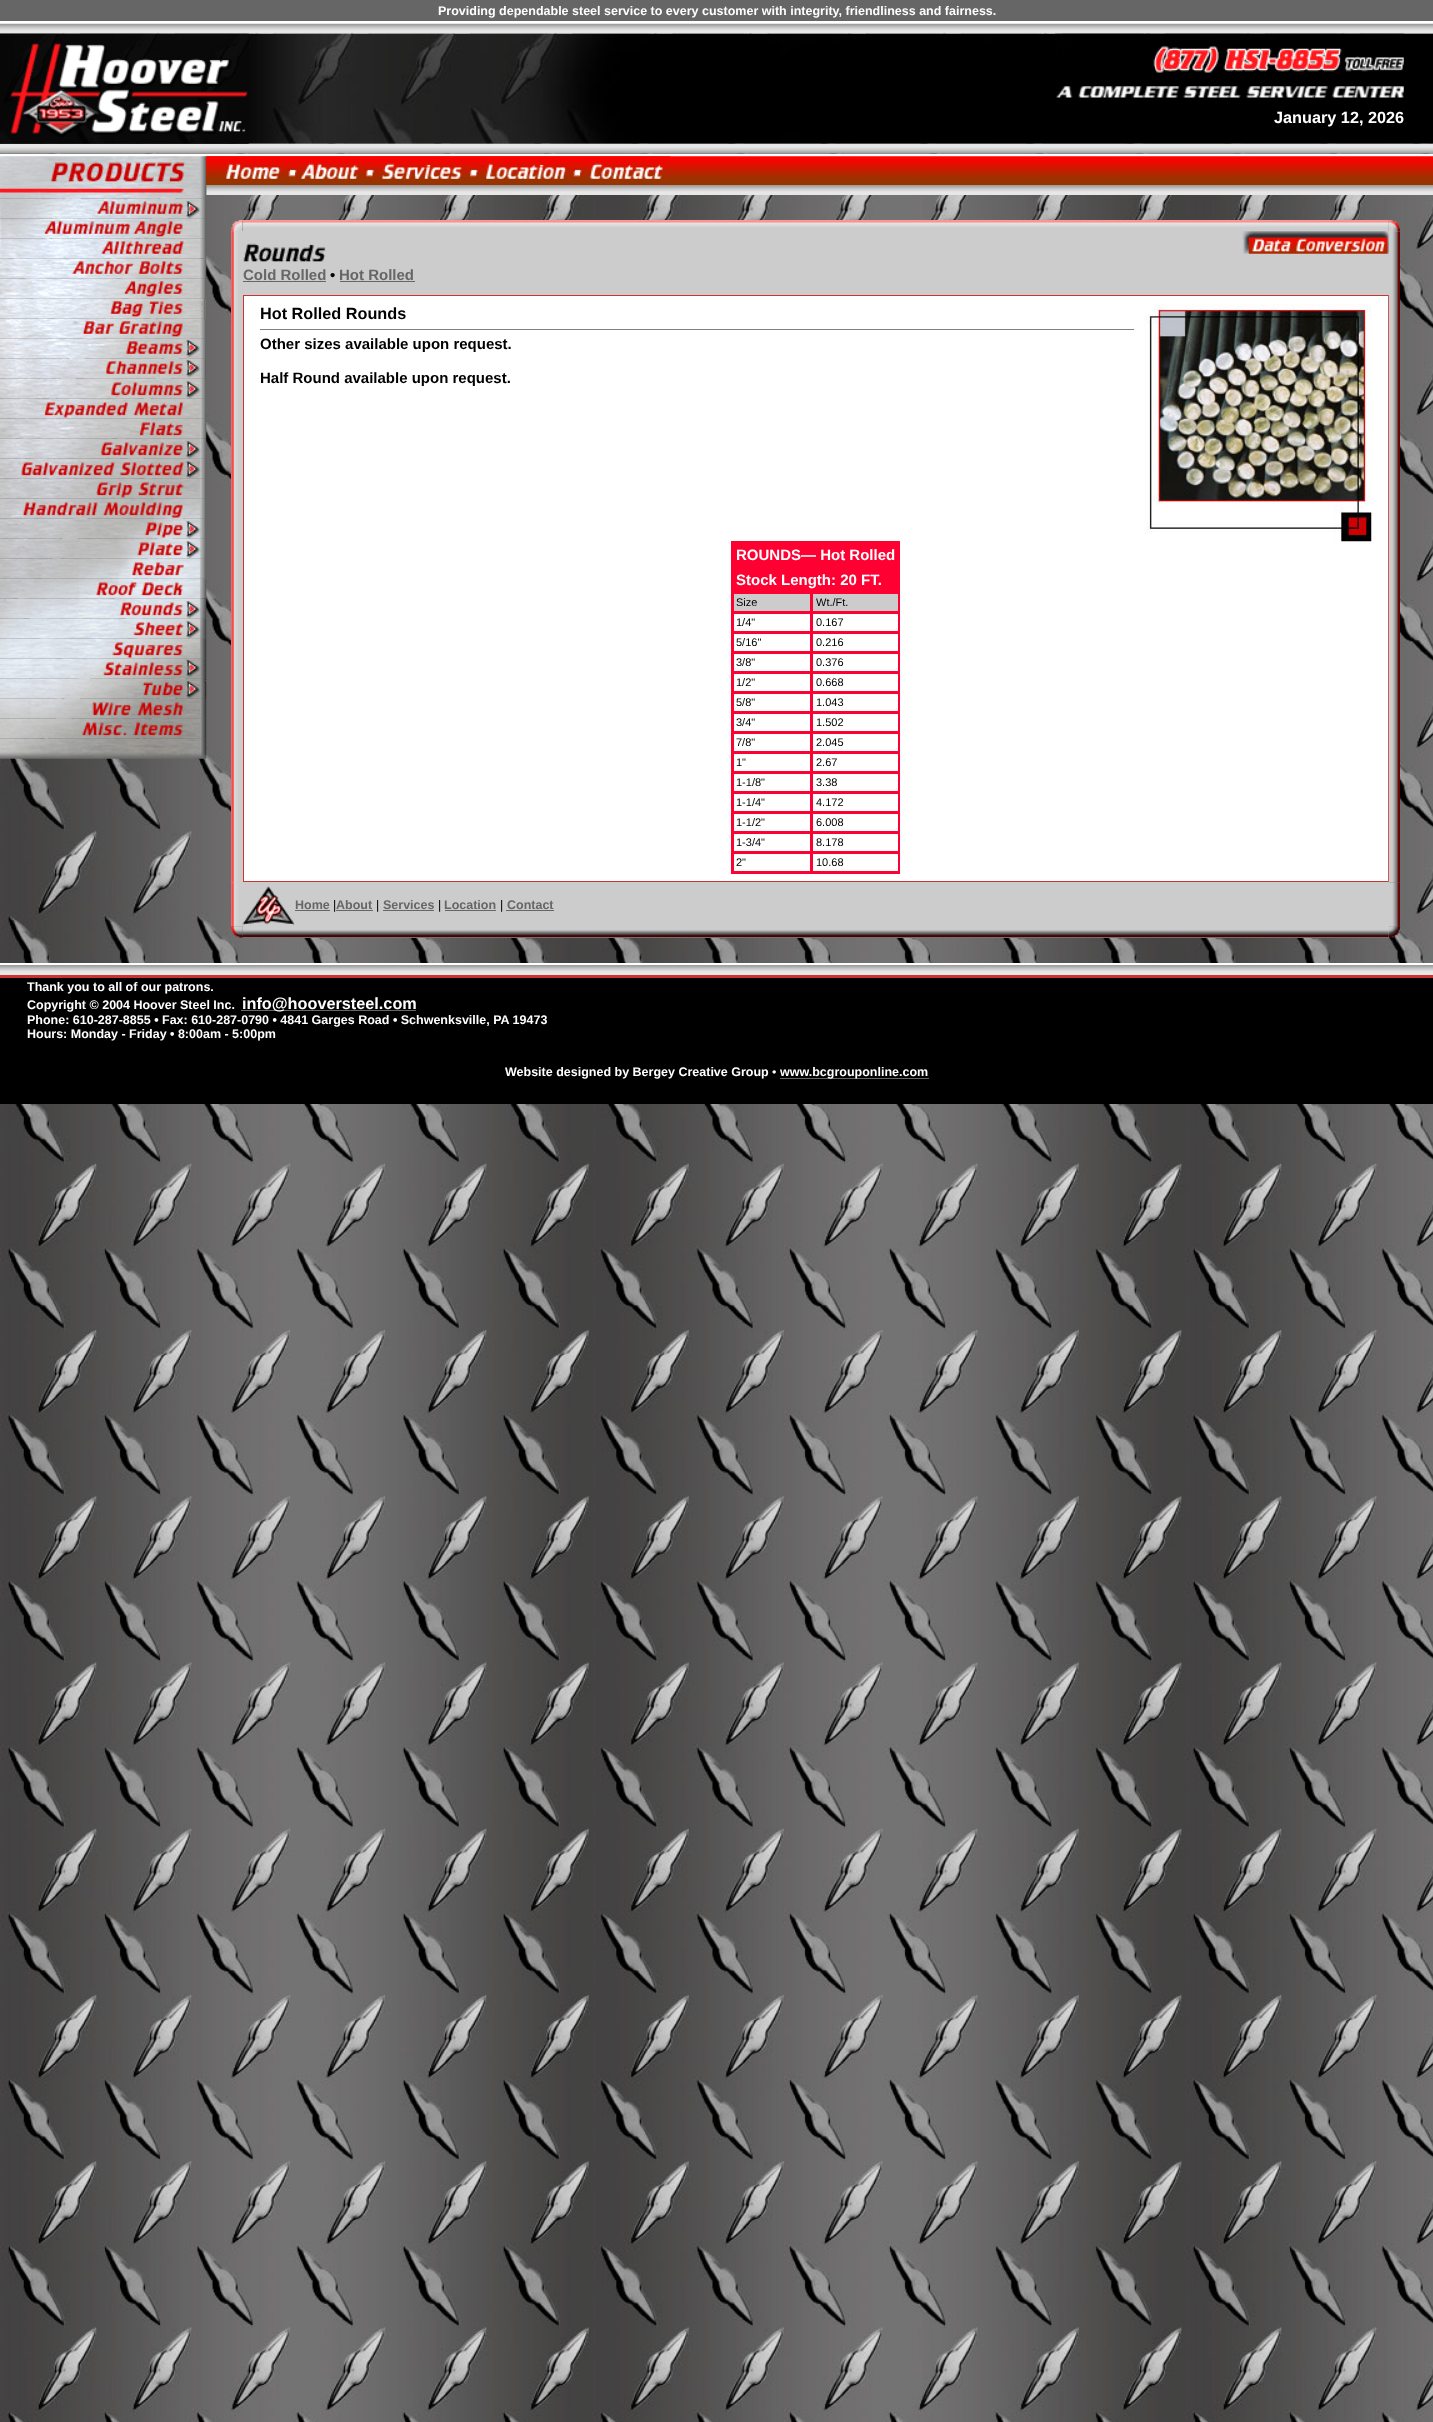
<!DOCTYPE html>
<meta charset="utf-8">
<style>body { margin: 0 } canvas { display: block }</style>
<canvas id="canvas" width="1433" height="2422"></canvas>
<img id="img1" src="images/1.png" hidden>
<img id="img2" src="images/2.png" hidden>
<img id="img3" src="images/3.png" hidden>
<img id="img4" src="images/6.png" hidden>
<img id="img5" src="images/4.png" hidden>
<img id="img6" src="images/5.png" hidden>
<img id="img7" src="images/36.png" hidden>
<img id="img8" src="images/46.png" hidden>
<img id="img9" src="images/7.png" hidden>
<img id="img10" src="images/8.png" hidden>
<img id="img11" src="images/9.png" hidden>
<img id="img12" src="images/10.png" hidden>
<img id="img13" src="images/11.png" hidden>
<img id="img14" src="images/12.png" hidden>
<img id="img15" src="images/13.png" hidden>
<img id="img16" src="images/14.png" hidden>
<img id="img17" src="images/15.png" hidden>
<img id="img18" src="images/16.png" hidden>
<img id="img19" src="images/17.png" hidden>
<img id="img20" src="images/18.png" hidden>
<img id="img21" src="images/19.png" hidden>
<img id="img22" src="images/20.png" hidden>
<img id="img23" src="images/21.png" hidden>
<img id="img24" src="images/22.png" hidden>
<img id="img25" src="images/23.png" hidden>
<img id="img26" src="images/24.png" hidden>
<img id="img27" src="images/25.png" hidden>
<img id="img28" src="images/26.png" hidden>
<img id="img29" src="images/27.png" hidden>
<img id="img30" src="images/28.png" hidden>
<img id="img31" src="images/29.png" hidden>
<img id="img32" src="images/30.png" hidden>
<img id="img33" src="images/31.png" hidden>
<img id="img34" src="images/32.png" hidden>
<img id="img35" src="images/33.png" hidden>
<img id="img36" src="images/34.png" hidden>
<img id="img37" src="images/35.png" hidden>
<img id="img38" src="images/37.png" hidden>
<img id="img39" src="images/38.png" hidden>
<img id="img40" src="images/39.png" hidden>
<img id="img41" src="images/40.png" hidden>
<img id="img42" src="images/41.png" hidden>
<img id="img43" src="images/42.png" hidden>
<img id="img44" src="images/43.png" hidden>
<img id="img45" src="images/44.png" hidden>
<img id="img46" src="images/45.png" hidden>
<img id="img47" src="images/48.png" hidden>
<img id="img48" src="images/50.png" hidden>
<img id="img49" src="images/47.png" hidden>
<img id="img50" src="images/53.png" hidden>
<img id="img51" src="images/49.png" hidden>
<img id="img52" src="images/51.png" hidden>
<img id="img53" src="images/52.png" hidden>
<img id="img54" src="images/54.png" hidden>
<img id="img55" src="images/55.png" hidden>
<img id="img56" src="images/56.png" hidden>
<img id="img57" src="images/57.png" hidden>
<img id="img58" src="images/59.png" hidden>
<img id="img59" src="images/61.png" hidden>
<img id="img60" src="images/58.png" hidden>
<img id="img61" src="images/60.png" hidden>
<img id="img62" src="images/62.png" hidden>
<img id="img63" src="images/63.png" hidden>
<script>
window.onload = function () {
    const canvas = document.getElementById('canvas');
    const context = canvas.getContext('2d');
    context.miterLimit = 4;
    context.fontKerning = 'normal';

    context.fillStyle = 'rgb(255, 255, 255)';
    context.fillRect(0, 0, 1433, 2422);
    context.drawImage(document.getElementById('img1'), 0, 33, 1433, 2389);
    context.fillStyle = 'rgb(102, 102, 102)';
    context.fillRect(0, 0, 1433, 21);
    context.drawImage(document.getElementById('img2'), 0, 23, 1433, 11);
    context.drawImage(document.getElementById('img3'), 0, 33, 1433, 111);
    context.drawImage(document.getElementById('img4'), 0, 143, 1433, 11);
    context.drawImage(document.getElementById('img5'), 0, 33, 249, 111);
    context.drawImage(document.getElementById('img6'), 1055, 33, 349, 65);
    context.fillStyle = 'rgb(255, 255, 255)';
    context.fillRect(0, 154, 1433, 3);
    context.drawImage(document.getElementById('img7'), 206, 156, 1227, 29);
    context.drawImage(document.getElementById('img8'), 206, 185, 1227, 10);
    context.drawImage(document.getElementById('img9'), 0, 156, 207, 43);
    context.drawImage(document.getElementById('img10'), 0, 198, 205, 21);
    context.drawImage(document.getElementById('img11'), 0, 218, 205, 21);
    context.drawImage(document.getElementById('img12'), 0, 238, 207, 21);
    context.drawImage(document.getElementById('img13'), 0, 258, 207, 21);
    context.drawImage(document.getElementById('img14'), 0, 278, 205, 21);
    context.drawImage(document.getElementById('img15'), 0, 298, 206, 21);
    context.drawImage(document.getElementById('img16'), 0, 318, 205, 21);
    context.drawImage(document.getElementById('img17'), 0, 338, 205, 21);
    context.drawImage(document.getElementById('img18'), 0, 358, 206, 21);
    context.drawImage(document.getElementById('img19'), 0, 378, 205, 21);
    context.drawImage(document.getElementById('img20'), 0, 398, 205, 21);
    context.drawImage(document.getElementById('img21'), 0, 418, 207, 21);
    context.drawImage(document.getElementById('img22'), 0, 438, 207, 21);
    context.drawImage(document.getElementById('img23'), 0, 458, 205, 21);
    context.drawImage(document.getElementById('img24'), 0, 478, 205, 21);
    context.drawImage(document.getElementById('img25'), 0, 498, 205, 21);
    context.drawImage(document.getElementById('img26'), 0, 518, 205, 21);
    context.drawImage(document.getElementById('img27'), 0, 538, 205, 21);
    context.drawImage(document.getElementById('img28'), 0, 558, 205, 21);
    context.drawImage(document.getElementById('img29'), 0, 578, 207, 21);
    context.drawImage(document.getElementById('img30'), 0, 598, 207, 21);
    context.drawImage(document.getElementById('img31'), 0, 618, 207, 21);
    context.drawImage(document.getElementById('img32'), 0, 638, 207, 21);
    context.drawImage(document.getElementById('img33'), 0, 658, 207, 21);
    context.drawImage(document.getElementById('img34'), 0, 678, 207, 21);
    context.drawImage(document.getElementById('img35'), 0, 698, 207, 21);
    context.drawImage(document.getElementById('img36'), 0, 718, 207, 21);
    context.drawImage(document.getElementById('img37'), 0, 738, 207, 21);
    context.drawImage(document.getElementById('img38'), 206, 156, 82, 29);
    context.drawImage(document.getElementById('img39'), 287, 156, 11, 21);
    context.drawImage(document.getElementById('img40'), 297, 156, 68, 23);
    context.drawImage(document.getElementById('img41'), 365, 156, 10, 21);
    context.drawImage(document.getElementById('img42'), 375, 156, 94, 23);
    context.drawImage(document.getElementById('img43'), 468, 156, 11, 21);
    context.drawImage(document.getElementById('img44'), 478, 156, 95, 23);
    context.drawImage(document.getElementById('img45'), 572, 156, 11, 21);
    context.drawImage(document.getElementById('img46'), 582, 156, 88, 23);
    context.drawImage(document.getElementById('img47'), 242, 220, 1147, 11);
    context.fillStyle = 'rgb(204, 204, 204)';
    context.fillRect(231, 231, 1169, 64);
    context.drawImage(document.getElementById('img48'), 231, 231, 7, 64);
    context.drawImage(document.getElementById('img49'), 231, 220, 12, 12);
    context.drawImage(document.getElementById('img50'), 1392, 231, 8, 64);
    context.drawImage(document.getElementById('img51'), 1388, 220, 12, 12);
    context.drawImage(document.getElementById('img52'), 1242, 231, 147, 23);
    context.drawImage(document.getElementById('img53'), 243, 243, 83, 19);
    context.fillStyle = 'rgb(102, 102, 102)';
    context.fillRect(243, 281, 83, 1);
    context.fillRect(340, 281, 75, 1);
    context.fillStyle = 'rgb(204, 204, 204)';
    context.fillRect(231, 295, 12, 631);
    context.drawImage(document.getElementById('img54'), 231, 295, 7, 588);
    context.fillRect(243, 882, 1146, 44);
    context.fillStyle = 'rgb(204, 51, 51)';
    context.fillRect(243, 295, 1146, 1);
    context.fillRect(243, 296, 1, 586);
    context.fillStyle = 'rgb(255, 255, 255)';
    context.fillRect(244, 296, 1144, 8);
    context.fillStyle = 'rgb(204, 51, 51)';
    context.fillRect(1388, 296, 1, 585);
    context.fillStyle = 'rgb(255, 255, 255)';
    context.fillRect(244, 304, 1144, 570);
    context.drawImage(document.getElementById('img55'), 1144, 303, 228, 239);
    context.fillStyle = 'rgb(128, 128, 128)';
    context.fillRect(260, 329, 874, 1);
    context.fillStyle = 'rgb(255, 0, 51)';
    context.fillRect(731, 541, 169, 333);
    context.fillStyle = 'rgb(204, 204, 204)';
    context.fillRect(734, 594, 76, 17);
    context.fillRect(813, 594, 85, 17);
    context.fillStyle = 'rgb(255, 255, 255)';
    context.fillRect(734, 614, 76, 17);
    context.fillRect(813, 614, 85, 17);
    context.fillRect(734, 634, 76, 17);
    context.fillRect(813, 634, 85, 17);
    context.fillRect(734, 654, 76, 17);
    context.fillRect(813, 654, 85, 17);
    context.fillRect(734, 674, 76, 17);
    context.fillRect(813, 674, 85, 17);
    context.fillRect(734, 694, 76, 17);
    context.fillRect(813, 694, 85, 17);
    context.fillRect(734, 714, 76, 17);
    context.fillRect(813, 714, 85, 17);
    context.fillRect(734, 734, 76, 17);
    context.fillRect(813, 734, 85, 17);
    context.fillRect(734, 754, 76, 17);
    context.fillRect(813, 754, 85, 17);
    context.fillRect(734, 774, 76, 17);
    context.fillRect(813, 774, 85, 17);
    context.fillRect(734, 794, 76, 17);
    context.fillRect(813, 794, 85, 17);
    context.fillRect(734, 814, 76, 17);
    context.fillRect(813, 814, 85, 17);
    context.fillRect(734, 834, 76, 17);
    context.fillRect(813, 834, 85, 17);
    context.fillRect(734, 854, 76, 17);
    context.fillRect(813, 854, 85, 17);
    context.fillRect(244, 874, 1144, 7);
    context.fillStyle = 'rgb(204, 51, 51)';
    context.fillRect(244, 881, 1145, 1);
    context.drawImage(document.getElementById('img56'), 1388, 295, 12, 588);
    context.drawImage(document.getElementById('img57'), 231, 882, 12, 45);
    context.drawImage(document.getElementById('img58'), 1388, 882, 12, 45);
    context.fillStyle = 'rgb(204, 204, 204)';
    context.fillRect(243, 926, 1146, 12);
    context.drawImage(document.getElementById('img59'), 242, 926, 1147, 12);
    context.drawImage(document.getElementById('img60'), 242, 886, 53, 41);
    context.fillStyle = 'rgb(102, 102, 102)';
    context.fillRect(295, 910, 35, 1);
    context.fillRect(336, 910, 37, 1);
    context.fillRect(383, 910, 51, 1);
    context.fillRect(445, 910, 51, 1);
    context.fillRect(506, 910, 48, 1);
    context.drawImage(document.getElementById('img61'), 231, 926, 12, 12);
    context.drawImage(document.getElementById('img62'), 1388, 926, 12, 12);
    context.fillStyle = 'rgb(255, 255, 255)';
    context.fillRect(0, 963, 1433, 2);
    context.drawImage(document.getElementById('img63'), 0, 965, 1433, 10);
    context.fillStyle = 'rgb(204, 51, 51)';
    context.fillRect(0, 975, 1433, 3);
    context.fillStyle = 'rgb(0, 0, 0)';
    context.fillRect(0, 978, 1433, 126);
    context.fillStyle = 'rgb(102, 102, 102)';
    context.fillRect(241, 1010, 175, 1);
    context.fillRect(780, 1078, 149, 1);
    context.font = 'bold 12.5px Liberation Sans';
    context.fillStyle = 'rgb(255, 255, 255)';
    context.fillText('Providing dependable steel service to every customer with integrity, friendliness and fairness.', 438, 15);
    context.font = 'bold 16.25px Liberation Sans';
    context.fillText('January 12, 2026', 1274, 123);
    context.font = 'bold 15px Liberation Sans';
    context.fillStyle = 'rgb(102, 102, 102)';
    context.fillText('Cold Rolled', 243, 280);
    context.fillStyle = 'rgb(0, 0, 0)';
    context.fillText('•', 330, 280);
    context.fillStyle = 'rgb(102, 102, 102)';
    context.fillText('Hot Rolled', 339, 280);
    context.font = 'bold 16.25px Liberation Sans';
    context.fillStyle = 'rgb(0, 0, 0)';
    context.fillText('Hot Rolled Rounds', 260, 319);
    context.font = 'bold 15px Liberation Sans';
    context.fillText('Other sizes available upon request.', 260, 349);
    context.fillText('Half Round available upon request.', 260, 383);
    context.fillStyle = 'rgb(255, 255, 255)';
    context.fillText('ROUNDS— Hot Rolled', 736, 560);
    context.fillText('Stock Length: 20 FT.', 736, 585);
    context.font = '11px Liberation Sans';
    context.fillStyle = 'rgb(0, 0, 0)';
    context.fillText('Size', 736, 606);
    context.fillText('Wt./Ft.', 816, 606);
    context.fillText('1/4"', 736, 626);
    context.fillText('0.167', 816, 626);
    context.fillText('5/16"', 736, 646);
    context.fillText('0.216', 816, 646);
    context.fillText('3/8"', 736, 666);
    context.fillText('0.376', 816, 666);
    context.fillText('1/2"', 736, 686);
    context.fillText('0.668', 816, 686);
    context.fillText('5/8"', 736, 706);
    context.fillText('1.043', 816, 706);
    context.fillText('3/4"', 736, 726);
    context.fillText('1.502', 816, 726);
    context.fillText('7/8"', 736, 746);
    context.fillText('2.045', 816, 746);
    context.fillText('1"', 736, 766);
    context.fillText('2.67', 816, 766);
    context.fillText('1-1/8"', 736, 786);
    context.fillText('3.38', 816, 786);
    context.fillText('1-1/4"', 736, 806);
    context.fillText('4.172', 816, 806);
    context.fillText('1-1/2"', 736, 826);
    context.fillText('6.008', 816, 826);
    context.fillText('1-3/4"', 736, 846);
    context.fillText('8.178', 816, 846);
    context.fillText('2"', 736, 866);
    context.fillText('10.68', 816, 866);
    context.font = 'bold 12.5px Liberation Sans';
    context.fillStyle = 'rgb(102, 102, 102)';
    context.fillText('Home', 295, 909);
    context.font = '12.5px Liberation Sans';
    context.fillStyle = 'rgb(0, 0, 0)';
    context.fillText('|', 333, 909);
    context.font = 'bold 12.5px Liberation Sans';
    context.fillStyle = 'rgb(102, 102, 102)';
    context.fillText('About', 336, 909);
    context.font = '12.5px Liberation Sans';
    context.fillStyle = 'rgb(0, 0, 0)';
    context.fillText('|', 376, 909);
    context.font = 'bold 12.5px Liberation Sans';
    context.fillStyle = 'rgb(102, 102, 102)';
    context.fillText('Services', 383, 909);
    context.font = '12.5px Liberation Sans';
    context.fillStyle = 'rgb(0, 0, 0)';
    context.fillText('|', 438, 909);
    context.font = 'bold 12.5px Liberation Sans';
    context.fillStyle = 'rgb(102, 102, 102)';
    context.fillText('Location', 444, 909);
    context.font = '12.5px Liberation Sans';
    context.fillStyle = 'rgb(0, 0, 0)';
    context.fillText('|', 500, 909);
    context.font = 'bold 12.5px Liberation Sans';
    context.fillStyle = 'rgb(102, 102, 102)';
    context.fillText('Contact', 507, 909);
    context.fillStyle = 'rgb(255, 255, 255)';
    context.fillText('Thank you to all of our patrons.', 27, 991);
    context.fillText('Copyright © 2004 Hoover Steel Inc.', 27, 1009);
    context.font = 'bold 16.25px Liberation Sans';
    context.fillText('info@hooversteel.com', 242, 1009);
    context.font = 'bold 12.5px Liberation Sans';
    context.fillText('Phone: 610-287-8855 • Fax: 610-287-0790 • 4841 Garges Road • Schwenksville, PA 19473', 27, 1024);
    context.fillText('Hours: Monday - Friday • 8:00am - 5:00pm', 27, 1038);
    context.fillText('Website designed by Bergey Creative Group', 505, 1076);
    context.font = '12.5px Liberation Sans';
    context.fillText('•', 772, 1076);
    context.font = 'bold 12.5px Liberation Sans';
    context.fillText('www.bcgrouponline.com', 780, 1076);
};
</script>
